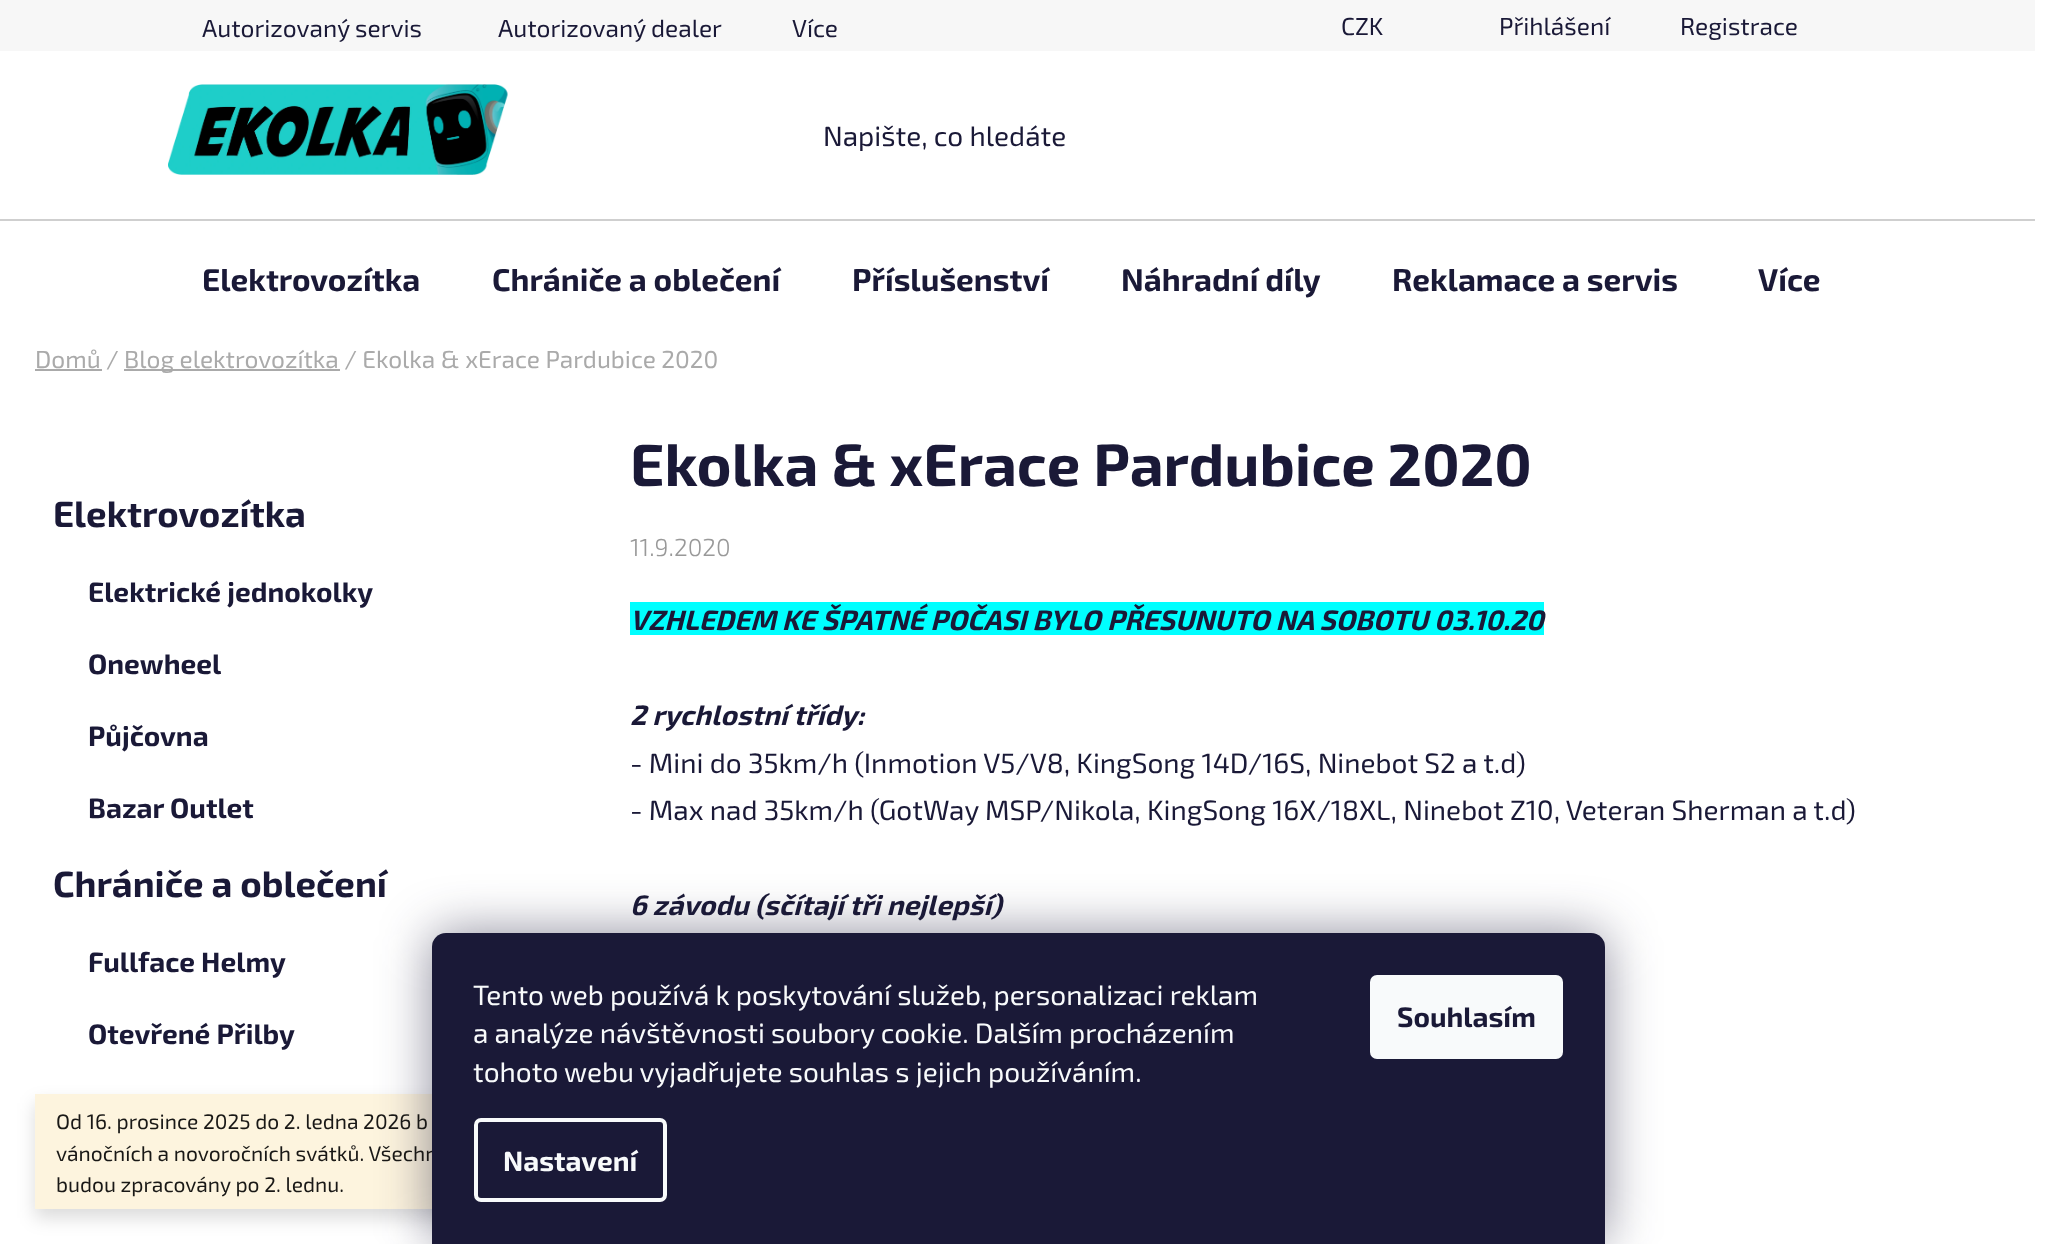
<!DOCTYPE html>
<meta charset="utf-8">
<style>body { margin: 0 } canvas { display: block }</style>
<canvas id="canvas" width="2061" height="1244"></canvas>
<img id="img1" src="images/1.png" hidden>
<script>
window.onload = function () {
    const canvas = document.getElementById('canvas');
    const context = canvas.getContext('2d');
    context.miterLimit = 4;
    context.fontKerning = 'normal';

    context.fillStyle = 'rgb(255, 255, 255)';
    context.fillRect(0, 0, 2061, 1244);
    context.fillStyle = 'rgb(247, 247, 247)';
    context.fillRect(0, 0, 2035, 51);
    context.drawImage(document.getElementById('img1'), 168, 84, 340, 91);
    context.fillStyle = 'rgb(207, 207, 207)';
    context.fillRect(0, 219, 2035, 2);
    context.fillStyle = 'rgb(170, 170, 170)';
    context.fillRect(35, 369, 67, 2);
    context.fillRect(124, 369, 216, 2);
    context.fillStyle = 'rgb(0, 255, 255)';
    context.fillRect(630, 602, 914, 33);
    context.save();
    context.beginPath();
    context.moveTo(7, 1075);
    context.lineTo(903, 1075);
    context.lineTo(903, 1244);
    context.lineTo(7, 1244);
    context.closePath();
    context.moveTo(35, 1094);
    context.lineTo(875, 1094);
    context.lineTo(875, 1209);
    context.lineTo(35, 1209);
    context.closePath();
    context.clip('evenodd');
    context.fillStyle = 'rgba(0, 0, 0, 0.14)';
    context.filter = 'blur(9px)';
    context.beginPath();
    context.rect(35, 1103, 840, 115);
    context.fill();
    context.filter = 'none';
    context.restore();
    context.fillStyle = 'rgba(253, 243, 218, 0.9)';
    context.fillRect(35, 1094, 397, 115);
    context.fillStyle = 'rgba(27, 25, 57, 0.5)';
    context.filter = 'blur(26px)';
    context.beginPath();
    context.roundRect(432, 933, 1173, 311, 14);
    context.fill();
    context.filter = 'none';
    context.font = '24.5px "Exo 2"';
    context.fillStyle = 'rgb(26, 25, 55)';
    context.fillText('Autorizovaný servis', 202, 37);
    context.fillText('Autorizovaný dealer', 498, 37);
    context.fillText('Více', 792, 37);
    context.fillText('CZK', 1341, 35);
    context.fillText('Přihlášení', 1499, 35);
    context.fillText('Registrace', 1680, 35);
    context.save();
    context.beginPath();
    context.rect(823, 117, 469, 34);
    context.clip();
    context.font = '28px "Exo 2"';
    context.fillText('Napište, co hledáte', 823, 146);
    context.restore();
    context.font = 'bold 31.5px "Exo 2"';
    context.fillText('Elektrovozítka', 202, 291);
    context.fillText('Chrániče a oblečení', 492, 291);
    context.fillText('Příslušenství', 852, 291);
    context.fillText('Náhradní díly', 1121, 291);
    context.fillText('Reklamace a servis', 1392, 291);
    context.fillText('Více', 1758, 291);
    context.font = '24.5px "Exo 2"';
    context.fillStyle = 'rgb(170, 170, 170)';
    context.fillText('Domů /', 35, 368);
    context.fillText('Blog elektrovozítka / Ekolka & xErace Pardubice 2020', 124, 368);
    context.font = 'bold 36.5px "Exo 2"';
    context.fillStyle = 'rgb(26, 25, 55)';
    context.fillText('Elektrovozítka', 53, 527);
    context.font = 'bold 28px "Exo 2"';
    context.fillText('Elektrické jednokolky', 88, 602);
    context.fillText('Onewheel', 88, 674);
    context.fillText('Půjčovna', 88, 746);
    context.fillText('Bazar Outlet', 88, 818);
    context.font = 'bold 36.5px "Exo 2"';
    context.fillText('Chrániče a oblečení', 53, 897);
    context.font = 'bold 28px "Exo 2"';
    context.fillText('Fullface Helmy', 88, 972);
    context.fillText('Otevřené Přilby', 88, 1044);
    context.font = 'bold 59.5px "Exo 2"';
    context.fillText('Ekolka & xErace Pardubice 2020', 630, 486);
    context.font = '300 24.5px "Exo 2"';
    context.fillStyle = 'rgb(153, 153, 153)';
    context.fillText('11.9.2020', 630, 556);
    context.font = 'italic bold 28px "Exo 2"';
    context.fillStyle = 'rgb(26, 25, 55)';
    context.fillText('VZHLEDEM KE ŠPATNÉ POČASI BYLO PŘESUNUTO NA SOBOTU 03.10.20', 630, 630);
    context.fillText('2 rychlostní třídy:', 630, 725);
    context.font = '28px "Exo 2"';
    context.fillText('- Mini do 35km/h (Inmotion V5/V8, KingSong 14D/16S, Ninebot S2 a t.d)', 630, 773);
    context.fillText('- Max nad 35km/h (GotWay MSP/Nikola, KingSong 16X/18XL, Ninebot Z10, Veteran Sherman a t.d)', 630, 820);
    context.font = 'italic bold 28px "Exo 2"';
    context.fillText('6 závodu (sčítají tři nejlepší)', 630, 915);
    context.font = '21px "Exo 2"';
    context.fillStyle = 'rgb(25, 24, 22)';
    context.fillText('Od 16. prosince 2025 do 2. ledna 2026 b', 56, 1129);
    context.fillText('vánočních a novoročních svátků. Všechn', 56, 1161);
    context.fillText('budou zpracovány po 2. lednu.', 56, 1192);
    context.fillStyle = 'rgb(26, 25, 55)';
    context.beginPath();
    context.roundRect(432, 933, 1173, 311, [14, 14, 0, 0]);
    context.fill();
    context.font = '28px "Exo 2"';
    context.fillStyle = 'rgb(248, 250, 251)';
    context.fillText('Tento web používá k poskytování služeb, personalizaci reklam', 473, 1005);
    context.fillText('a analýze návštěvnosti soubory cookie. Dalším procházením', 473, 1043);
    context.fillText('tohoto webu vyjadřujete souhlas s jejich používáním.', 473, 1082);
    context.beginPath();
    context.roundRect(476, 1120, 189, 80, 5);
    context.strokeStyle = 'rgb(248, 250, 251)';
    context.lineWidth = 4;
    context.stroke();
    context.font = 'bold 28px "Exo 2"';
    context.fillText('Nastavení', 503, 1171);
    context.beginPath();
    context.roundRect(1370, 975, 193, 84, 7);
    context.fill();
    context.fillStyle = 'rgb(26, 25, 55)';
    context.fillText('Souhlasím', 1397, 1027);
};
</script>
